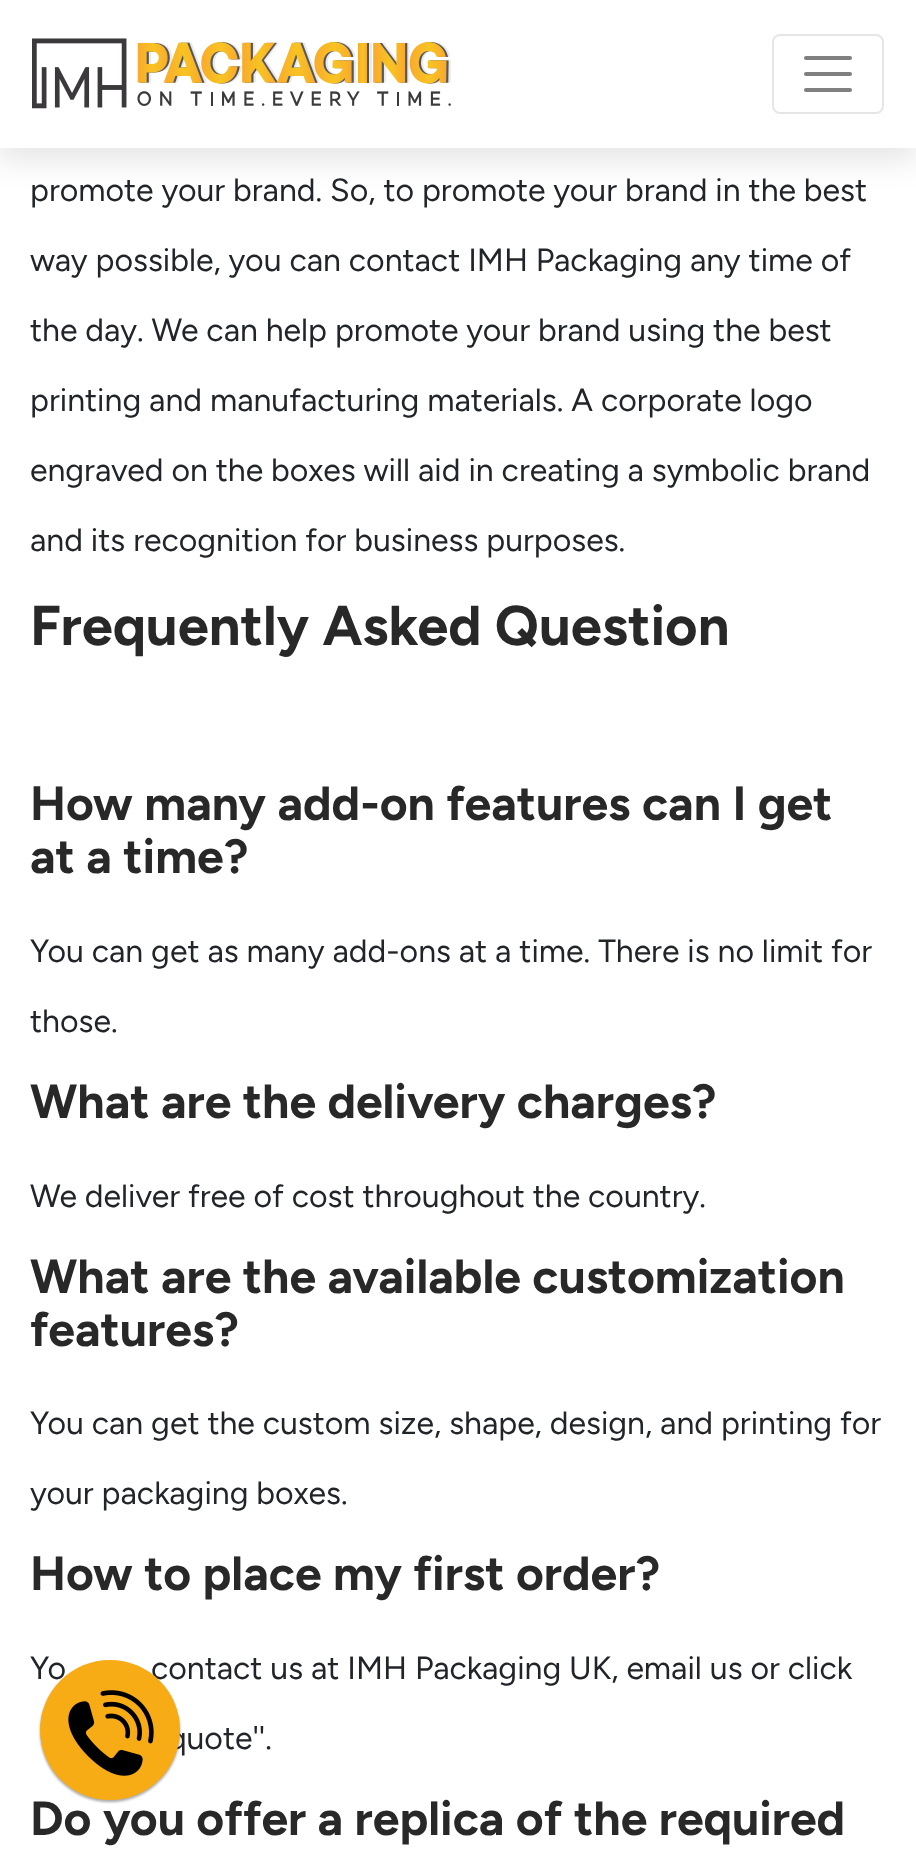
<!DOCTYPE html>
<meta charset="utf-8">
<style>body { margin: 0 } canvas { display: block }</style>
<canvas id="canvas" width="916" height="1860"></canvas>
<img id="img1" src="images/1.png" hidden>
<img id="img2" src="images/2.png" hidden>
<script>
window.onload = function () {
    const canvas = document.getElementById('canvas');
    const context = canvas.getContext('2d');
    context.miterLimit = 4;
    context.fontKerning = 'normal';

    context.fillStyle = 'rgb(255, 255, 255)';
    context.fillRect(0, 0, 916, 1860);
    context.fillStyle = 'rgba(0, 0, 0, 0.1)';
    context.filter = 'blur(15px)';
    context.beginPath();
    context.rect(-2, 8, 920, 152);
    context.fill();
    context.filter = 'none';
    context.fillStyle = 'rgb(255, 255, 255)';
    context.fillRect(0, 0, 916, 148);
    context.drawImage(document.getElementById('img1'), 32, 38, 419, 71);
    context.beginPath();
    context.roundRect(773, 35, 110, 78, 7);
    context.strokeStyle = 'rgb(230, 230, 230)';
    context.lineWidth = 2;
    context.stroke();
    context.beginPath();
    context.moveTo(806, 58);
    context.lineTo(850, 58);
    context.moveTo(806, 74);
    context.lineTo(850, 74);
    context.moveTo(806, 90);
    context.lineTo(850, 90);
    context.strokeStyle = 'rgb(128, 128, 128)';
    context.lineWidth = 4;
    context.lineCap = 'round';
    context.stroke();
    context.fillStyle = 'rgba(0, 0, 0, 0.24)';
    context.filter = 'blur(1px)';
    context.beginPath();
    context.roundRect(40, 1662, 140, 140, 70);
    context.fill();
    context.filter = 'none';
    context.fillStyle = 'rgba(0, 0, 0, 0.12)';
    context.filter = 'blur(1.5px)';
    context.beginPath();
    context.roundRect(40, 1662, 140, 140, 70);
    context.fill();
    context.filter = 'none';
    context.font = '32px Figtree';
    context.fillStyle = 'rgb(33, 37, 41)';
    context.fillText('promote your brand. So, to promote your brand in the best', 30, 201);
    context.fillText('way possible, you can contact IMH Packaging any time of', 30, 271);
    context.fillText('the day. We can help promote your brand using the best', 30, 341);
    context.fillText('printing and manufacturing materials. A corporate logo', 30, 411);
    context.fillText('engraved on the boxes will aid in creating a symbolic brand', 30, 481);
    context.fillText('and its recognition for business purposes.', 30, 551);
    context.font = 'bold 56px Figtree';
    context.fillStyle = 'rgb(40, 40, 40)';
    context.fillText('Frequently Asked Question', 30, 645);
    context.font = 'bold 48px Figtree';
    context.fillText('How many add-on features can I get', 30, 820);
    context.fillText('at a time?', 30, 873);
    context.font = '32px Figtree';
    context.fillStyle = 'rgb(33, 37, 41)';
    context.fillText('You can get as many add-ons at a time. There is no limit for', 30, 962);
    context.fillText('those.', 30, 1032);
    context.font = 'bold 48px Figtree';
    context.fillStyle = 'rgb(40, 40, 40)';
    context.fillText('What are the delivery charges?', 30, 1118);
    context.font = '32px Figtree';
    context.fillStyle = 'rgb(33, 37, 41)';
    context.fillText('We deliver free of cost throughout the country.', 30, 1207);
    context.font = 'bold 48px Figtree';
    context.fillStyle = 'rgb(40, 40, 40)';
    context.fillText('What are the available customization', 30, 1293);
    context.fillText('features?', 30, 1346);
    context.font = '32px Figtree';
    context.fillStyle = 'rgb(33, 37, 41)';
    context.fillText('You can get the custom size, shape, design, and printing for', 30, 1434);
    context.fillText('your packaging boxes.', 30, 1504);
    context.font = 'bold 48px Figtree';
    context.fillStyle = 'rgb(40, 40, 40)';
    context.fillText('How to place my first order?', 30, 1590);
    context.font = '32px Figtree';
    context.fillStyle = 'rgb(33, 37, 41)';
    context.fillText('Yo', 30, 1679);
    context.fillText('contact us at IMH Packaging UK, email us or click', 151, 1679);
    context.fillText('quote\'\'.', 168, 1749);
    context.font = 'bold 48px Figtree';
    context.fillStyle = 'rgb(40, 40, 40)';
    context.fillText('Do you offer a replica of the required', 30, 1835);
    context.fillStyle = 'rgb(247, 172, 22)';
    context.beginPath();
    context.arc(110, 1730, 70, 0, 2 * Math.PI);
    context.fill();
    context.drawImage(document.getElementById('img2'), 68, 1690, 86, 86);
};
</script>
